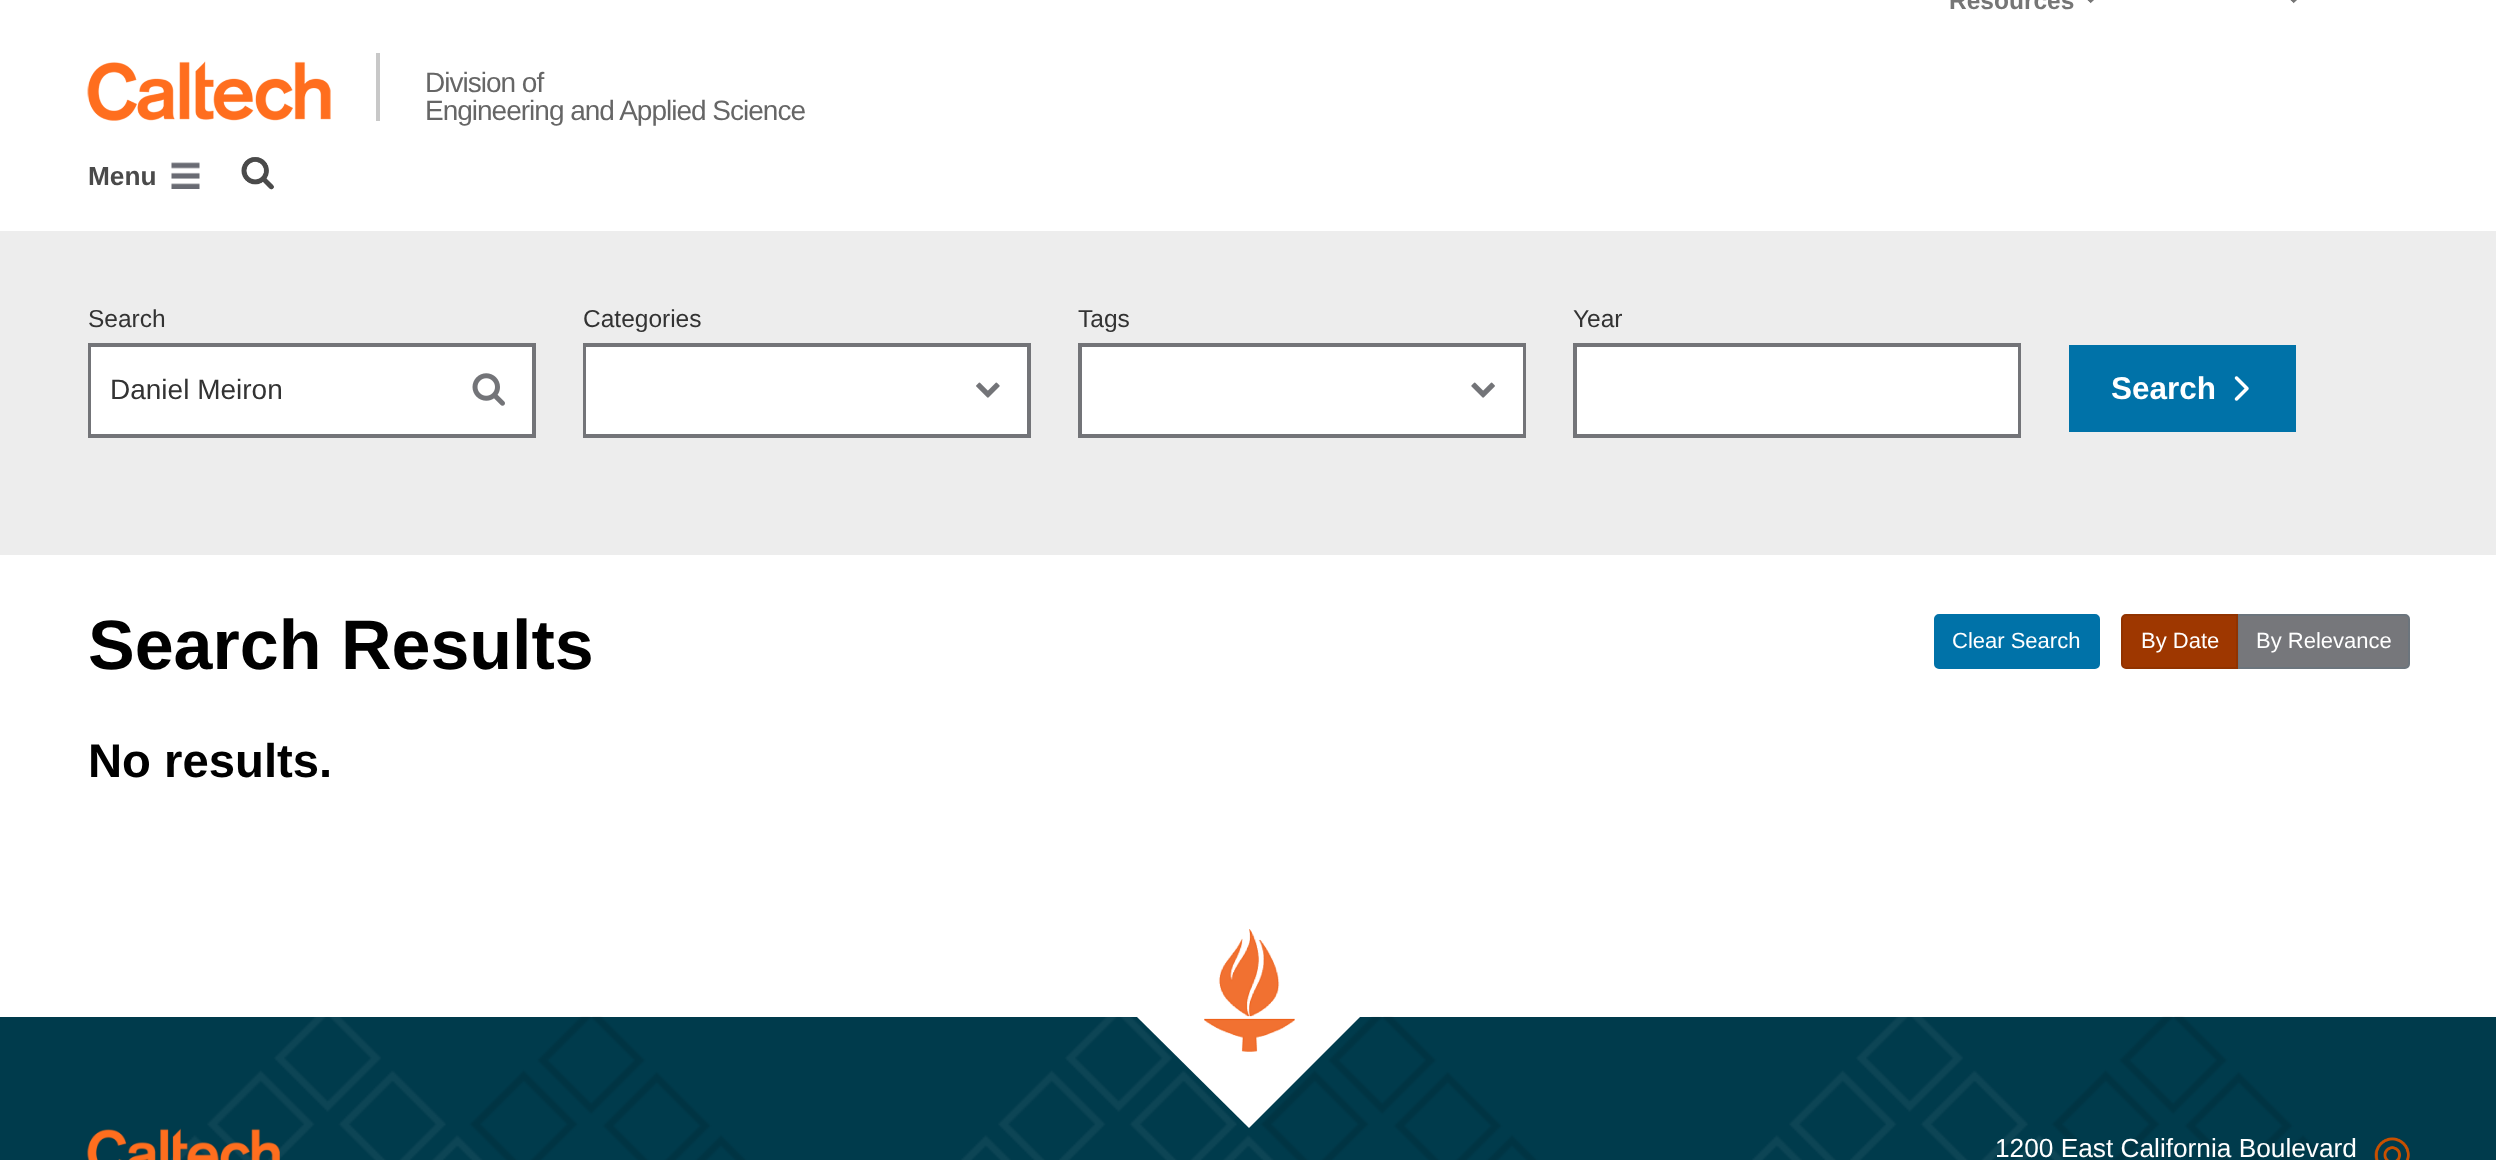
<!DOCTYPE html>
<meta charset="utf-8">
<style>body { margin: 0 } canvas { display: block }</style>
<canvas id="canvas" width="2496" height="1160"></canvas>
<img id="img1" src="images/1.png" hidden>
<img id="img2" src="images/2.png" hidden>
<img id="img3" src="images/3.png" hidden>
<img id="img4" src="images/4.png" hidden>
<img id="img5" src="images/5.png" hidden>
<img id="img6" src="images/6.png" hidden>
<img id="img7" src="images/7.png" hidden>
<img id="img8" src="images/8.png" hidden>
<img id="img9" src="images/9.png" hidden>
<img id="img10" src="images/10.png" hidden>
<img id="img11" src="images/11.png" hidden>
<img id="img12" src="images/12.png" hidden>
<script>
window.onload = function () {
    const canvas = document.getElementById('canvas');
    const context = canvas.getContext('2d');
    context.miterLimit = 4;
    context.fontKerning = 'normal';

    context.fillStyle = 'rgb(255, 255, 255)';
    context.fillRect(0, 0, 2496, 1160);
    context.drawImage(document.getElementById('img1'), 2087, 0, 7, 4);
    context.drawImage(document.getElementById('img1'), 2290, 0, 7, 4);
    context.drawImage(document.getElementById('img2'), 87, 61, 244, 60);
    context.fillStyle = 'rgb(200, 200, 200)';
    context.fillRect(376, 53, 4, 68);
    context.drawImage(document.getElementById('img3'), 171, 162, 29, 27);
    context.drawImage(document.getElementById('img4'), 241, 157, 33, 33);
    context.fillStyle = 'rgb(237, 237, 237)';
    context.fillRect(0, 231, 2496, 324);
    context.strokeStyle = 'rgb(115, 116, 120)';
    context.lineWidth = 4;
    context.strokeRect(90, 345, 444, 91);
    context.fillStyle = 'rgb(255, 255, 255)';
    context.fillRect(91, 347, 441, 87);
    context.drawImage(document.getElementById('img5'), 472, 373, 33, 33);
    context.strokeRect(585, 345, 444, 91);
    context.fillRect(586, 347, 441, 87);
    context.drawImage(document.getElementById('img6'), 976, 382, 24, 16);
    context.strokeRect(1080, 345, 444, 91);
    context.fillRect(1082, 347, 441, 87);
    context.drawImage(document.getElementById('img7'), 1471, 382, 24, 16);
    context.strokeRect(1575, 345, 444, 91);
    context.fillRect(1577, 347, 441, 87);
    context.fillStyle = 'rgb(0, 114, 168)';
    context.fillRect(2069, 345, 227, 87);
    context.drawImage(document.getElementById('img8'), 2234, 376, 15, 25);
    context.beginPath();
    context.roundRect(1935, 615, 164, 53, 4);
    context.fill();
    context.strokeStyle = 'rgb(0, 114, 168)';
    context.lineWidth = 2;
    context.stroke();
    context.fillStyle = 'rgb(118, 119, 123)';
    context.beginPath();
    context.roundRect(2238, 615, 171, 53, [0, 4, 4, 0]);
    context.fill();
    context.strokeStyle = 'rgb(108, 117, 125)';
    context.stroke();
    context.fillStyle = 'rgb(158, 55, 0)';
    context.beginPath();
    context.roundRect(2122, 615, 115, 53, [4, 0, 0, 4]);
    context.fill();
    context.strokeStyle = 'rgb(145, 51, 0)';
    context.stroke();
    context.fillStyle = 'rgb(0, 59, 76)';
    context.fillRect(0, 1017, 2496, 143);
    context.drawImage(document.getElementById('img9'), 171, 1016, 2156, 144);
    context.fillStyle = 'rgb(255, 255, 255)';
    context.beginPath();
    context.moveTo(1249, 906);
    context.lineTo(1360, 1017);
    context.lineTo(1249, 1128);
    context.lineTo(1137, 1017);
    context.closePath();
    context.fill();
    context.drawImage(document.getElementById('img10'), 1204, 929, 91, 123);
    context.drawImage(document.getElementById('img11'), 87, 1128, 193, 32);
    context.drawImage(document.getElementById('img12'), 2374, 1137, 36, 23);
    context.font = 'bold 24.5px Liberation Sans';
    context.fillStyle = 'rgb(118, 118, 118)';
    context.fillText('Resources', 1949, 9);
    context.letterSpacing = '-1px';
    context.font = '28px Liberation Sans';
    context.fillStyle = 'rgb(102, 102, 102)';
    context.fillText('Division of', 425, 92);
    context.fillText('Engineering and Applied Science', 425, 120);
    context.letterSpacing = '0px';
    context.font = 'bold 26.25px Liberation Sans';
    context.fillStyle = 'rgb(74, 74, 74)';
    context.fillText('Menu', 88, 185);
    context.font = '24.5px Liberation Sans';
    context.fillStyle = 'rgb(51, 51, 51)';
    context.fillText('Search', 88, 327);
    context.font = '28px Liberation Sans';
    context.fillText('Daniel Meiron', 110, 399);
    context.font = '24.5px Liberation Sans';
    context.fillText('Categories', 583, 327);
    context.fillText('Tags', 1078, 327);
    context.fillText('Year', 1573, 327);
    context.font = 'bold 31.5px Liberation Sans';
    context.fillStyle = 'rgb(255, 255, 255)';
    context.fillText('Search', 2111, 399);
    context.font = 'bold 70px Liberation Sans';
    context.fillStyle = 'rgb(0, 0, 0)';
    context.fillText('Search Results', 88, 669);
    context.font = '22px Liberation Sans';
    context.fillStyle = 'rgb(255, 255, 255)';
    context.fillText('Clear Search', 1952, 648);
    context.fillText('By Date', 2141, 648);
    context.fillText('By Relevance', 2256, 648);
    context.font = 'bold 47.25px Liberation Sans';
    context.fillStyle = 'rgb(0, 0, 0)';
    context.fillText('No results.', 88, 777);
    context.font = '26.25px Liberation Sans';
    context.fillStyle = 'rgb(255, 255, 255)';
    context.fillText('1200 East California Boulevard', 1995, 1157);
};
</script>
